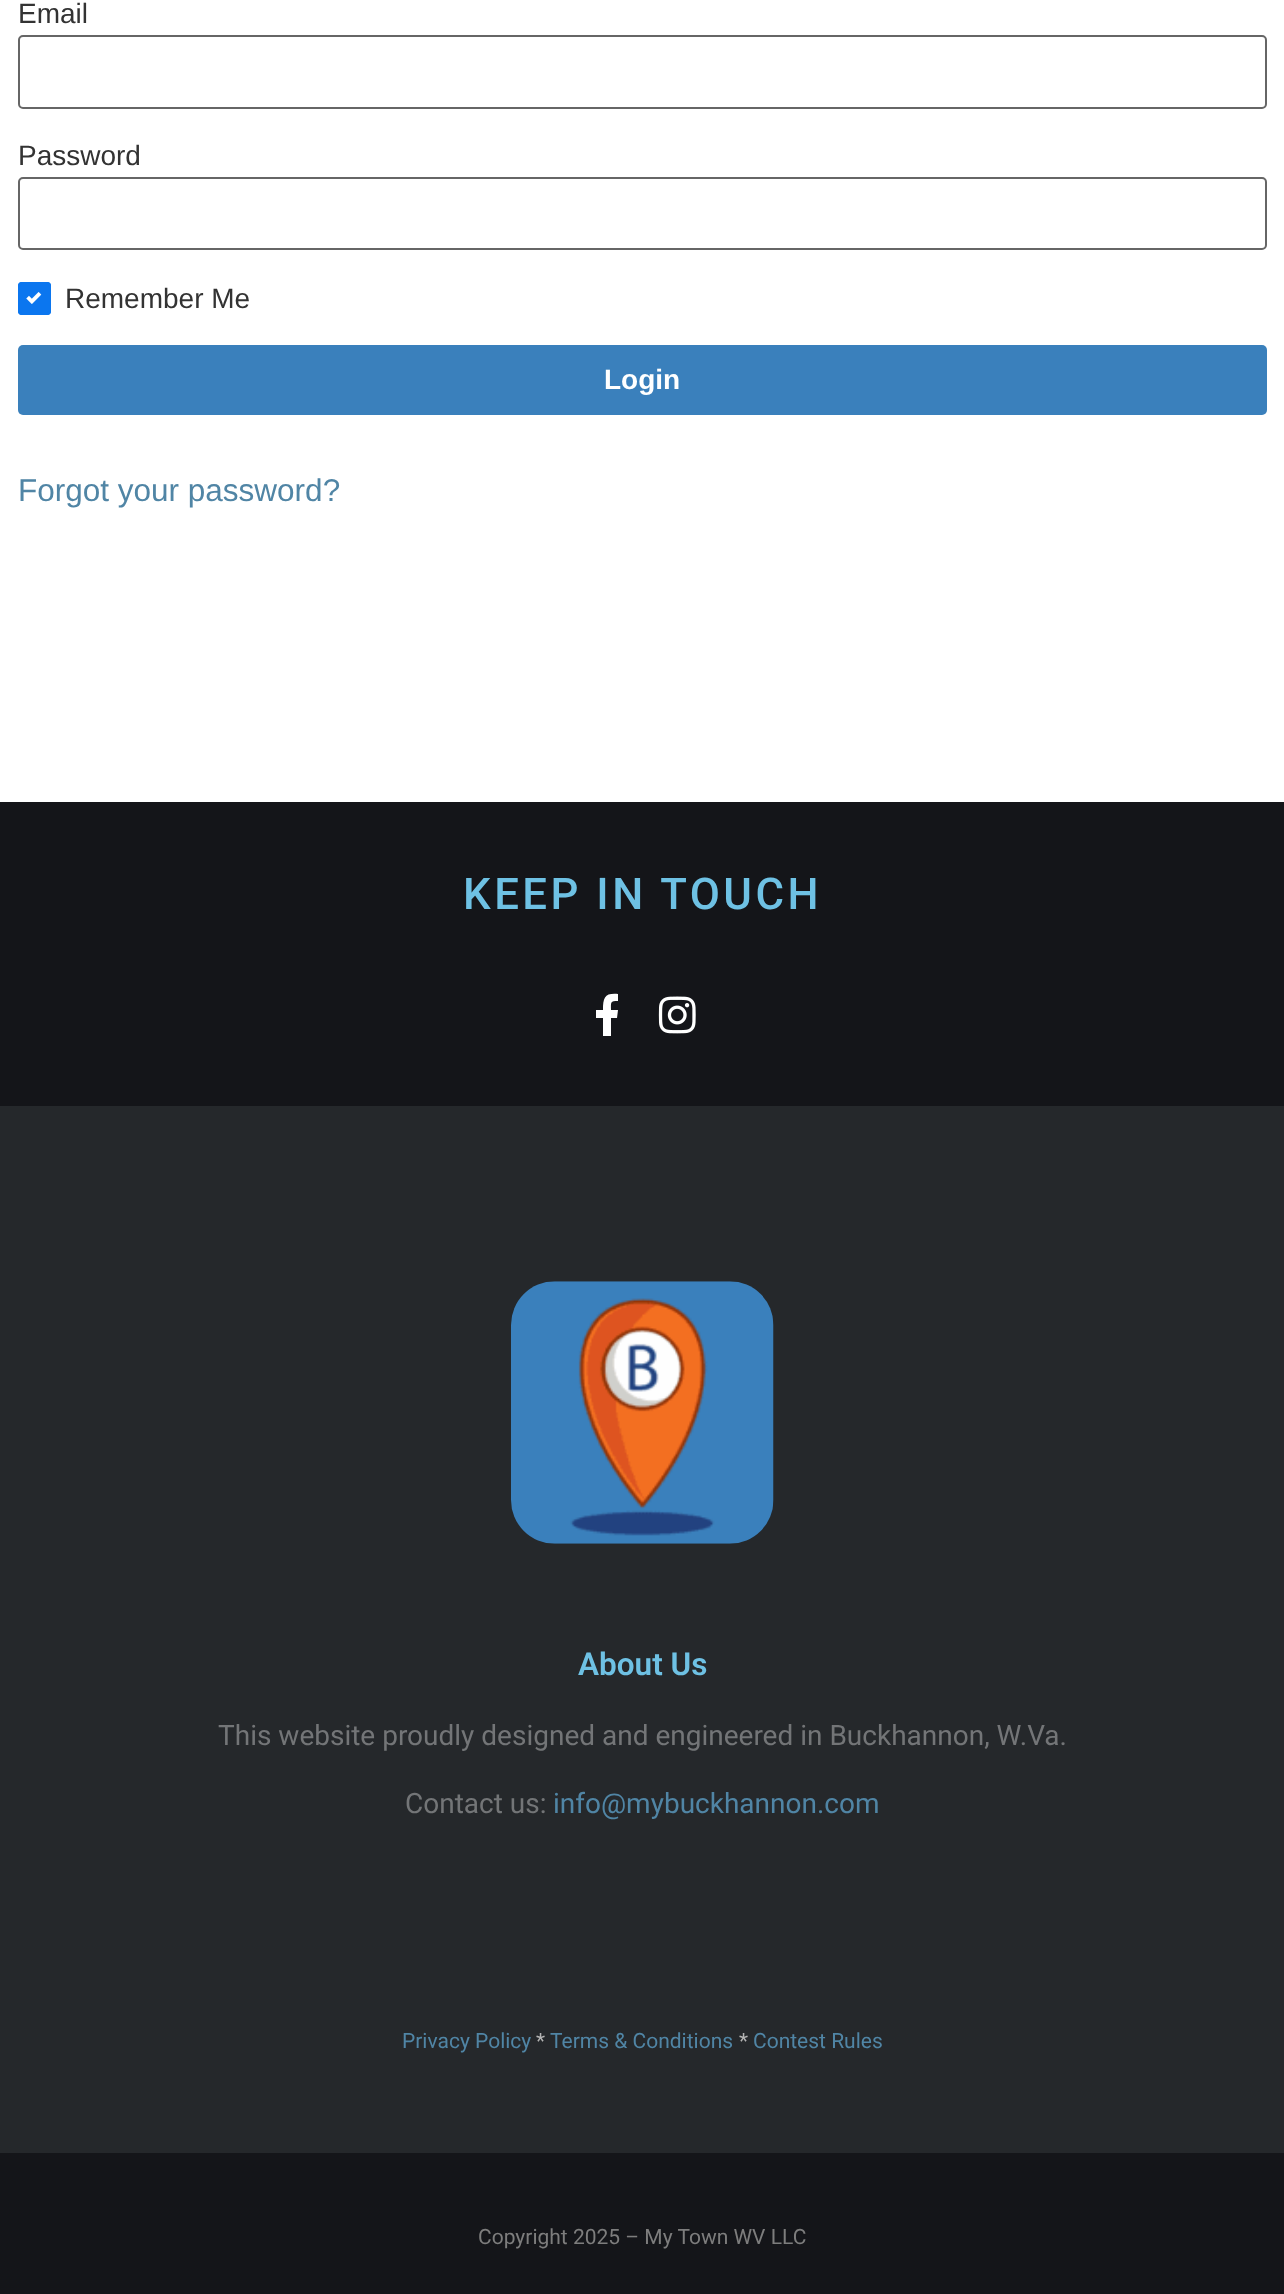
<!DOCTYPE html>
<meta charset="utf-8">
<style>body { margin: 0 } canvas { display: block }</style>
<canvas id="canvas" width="1284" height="2294"></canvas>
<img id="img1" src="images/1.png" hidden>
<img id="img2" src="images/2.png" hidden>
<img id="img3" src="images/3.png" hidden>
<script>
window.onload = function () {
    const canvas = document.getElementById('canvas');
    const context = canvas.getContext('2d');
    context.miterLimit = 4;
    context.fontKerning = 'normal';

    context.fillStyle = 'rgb(255, 255, 255)';
    context.fillRect(0, 0, 1284, 2294);
    context.beginPath();
    context.roundRect(19, 36, 1247, 72, 4);
    context.strokeStyle = 'rgb(102, 102, 102)';
    context.lineWidth = 2;
    context.stroke();
    context.beginPath();
    context.roundRect(19, 178, 1247, 71, 4);
    context.stroke();
    context.fillStyle = 'rgb(11, 118, 239)';
    context.beginPath();
    context.roundRect(18, 282, 33, 33, 4);
    context.fill();
    context.drawImage(document.getElementById('img1'), 26, 292, 16, 12);
    context.beginPath();
    context.roundRect(19, 283, 31, 31, 3);
    context.strokeStyle = 'rgb(11, 118, 239)';
    context.stroke();
    context.fillStyle = 'rgb(58, 128, 188)';
    context.beginPath();
    context.roundRect(18, 345, 1249, 70, 5);
    context.fill();
    context.fillStyle = 'rgb(20, 21, 25)';
    context.fillRect(0, 802, 1284, 304);
    context.fillStyle = 'rgb(255, 255, 255)';
    context.beginPath();
    context.moveTo(617, 1018);
    context.lineTo(611, 1018);
    context.lineTo(611, 1036);
    context.lineTo(603, 1036);
    context.lineTo(603, 1018);
    context.lineTo(596, 1018);
    context.lineTo(596, 1010);
    context.lineTo(603, 1010);
    context.bezierCurveTo(603, 997, 605, 993, 618, 994);
    context.lineTo(618, 1001);
    context.bezierCurveTo(610, 1001, 611, 1002, 611, 1010);
    context.lineTo(618, 1010);
    context.closePath();
    context.fill();
    context.drawImage(document.getElementById('img2'), 658, 996, 38, 38);
    context.fillStyle = 'rgb(37, 40, 43)';
    context.fillRect(0, 1106, 1284, 1047);
    context.drawImage(document.getElementById('img3'), 511, 1281, 263, 263);
    context.fillStyle = 'rgb(20, 21, 25)';
    context.fillRect(0, 2153, 1284, 141);
    context.font = '28px Liberation Sans';
    context.fillStyle = 'rgb(51, 51, 51)';
    context.fillText('Email', 18, 23);
    context.fillText('Password', 18, 165);
    context.fillText('Remember Me', 65, 308);
    context.font = 'bold 28px Liberation Sans';
    context.fillStyle = 'rgb(255, 255, 255)';
    context.fillText('Login', 604, 389);
    context.font = '31.5px Liberation Sans';
    context.fillStyle = 'rgb(80, 133, 165)';
    context.fillText('Forgot your password?', 18, 501);
    context.letterSpacing = '3.5px';
    context.font = '500 43.75px Roboto';
    context.fillStyle = 'rgb(110, 193, 228)';
    context.fillText('KEEP IN TOUCH', 463, 909);
    context.letterSpacing = '0px';
    context.font = '600 31.5px Roboto';
    context.fillText('About Us', 578, 1675);
    context.font = '28px Roboto';
    context.fillStyle = 'rgb(115, 117, 119)';
    context.fillText('This website proudly designed and engineered in Buckhannon, W.Va.', 218, 1745);
    context.fillText('Contact us:', 405, 1813);
    context.fillStyle = 'rgb(80, 133, 165)';
    context.fillText('info@mybuckhannon.com', 553, 1813);
    context.font = '21px Roboto';
    context.fillText('Privacy Policy', 402, 2048);
    context.fillStyle = 'rgb(180, 180, 180)';
    context.fillText('*', 536, 2048);
    context.fillStyle = 'rgb(80, 133, 165)';
    context.fillText('Terms & Conditions', 550, 2048);
    context.fillStyle = 'rgb(180, 180, 180)';
    context.fillText('*', 739, 2048);
    context.fillStyle = 'rgb(80, 133, 165)';
    context.fillText('Contest Rules', 753, 2048);
    context.fillStyle = 'rgb(125, 125, 125)';
    context.fillText('Copyright 2025 – My Town WV LLC', 478, 2244);
};
</script>
